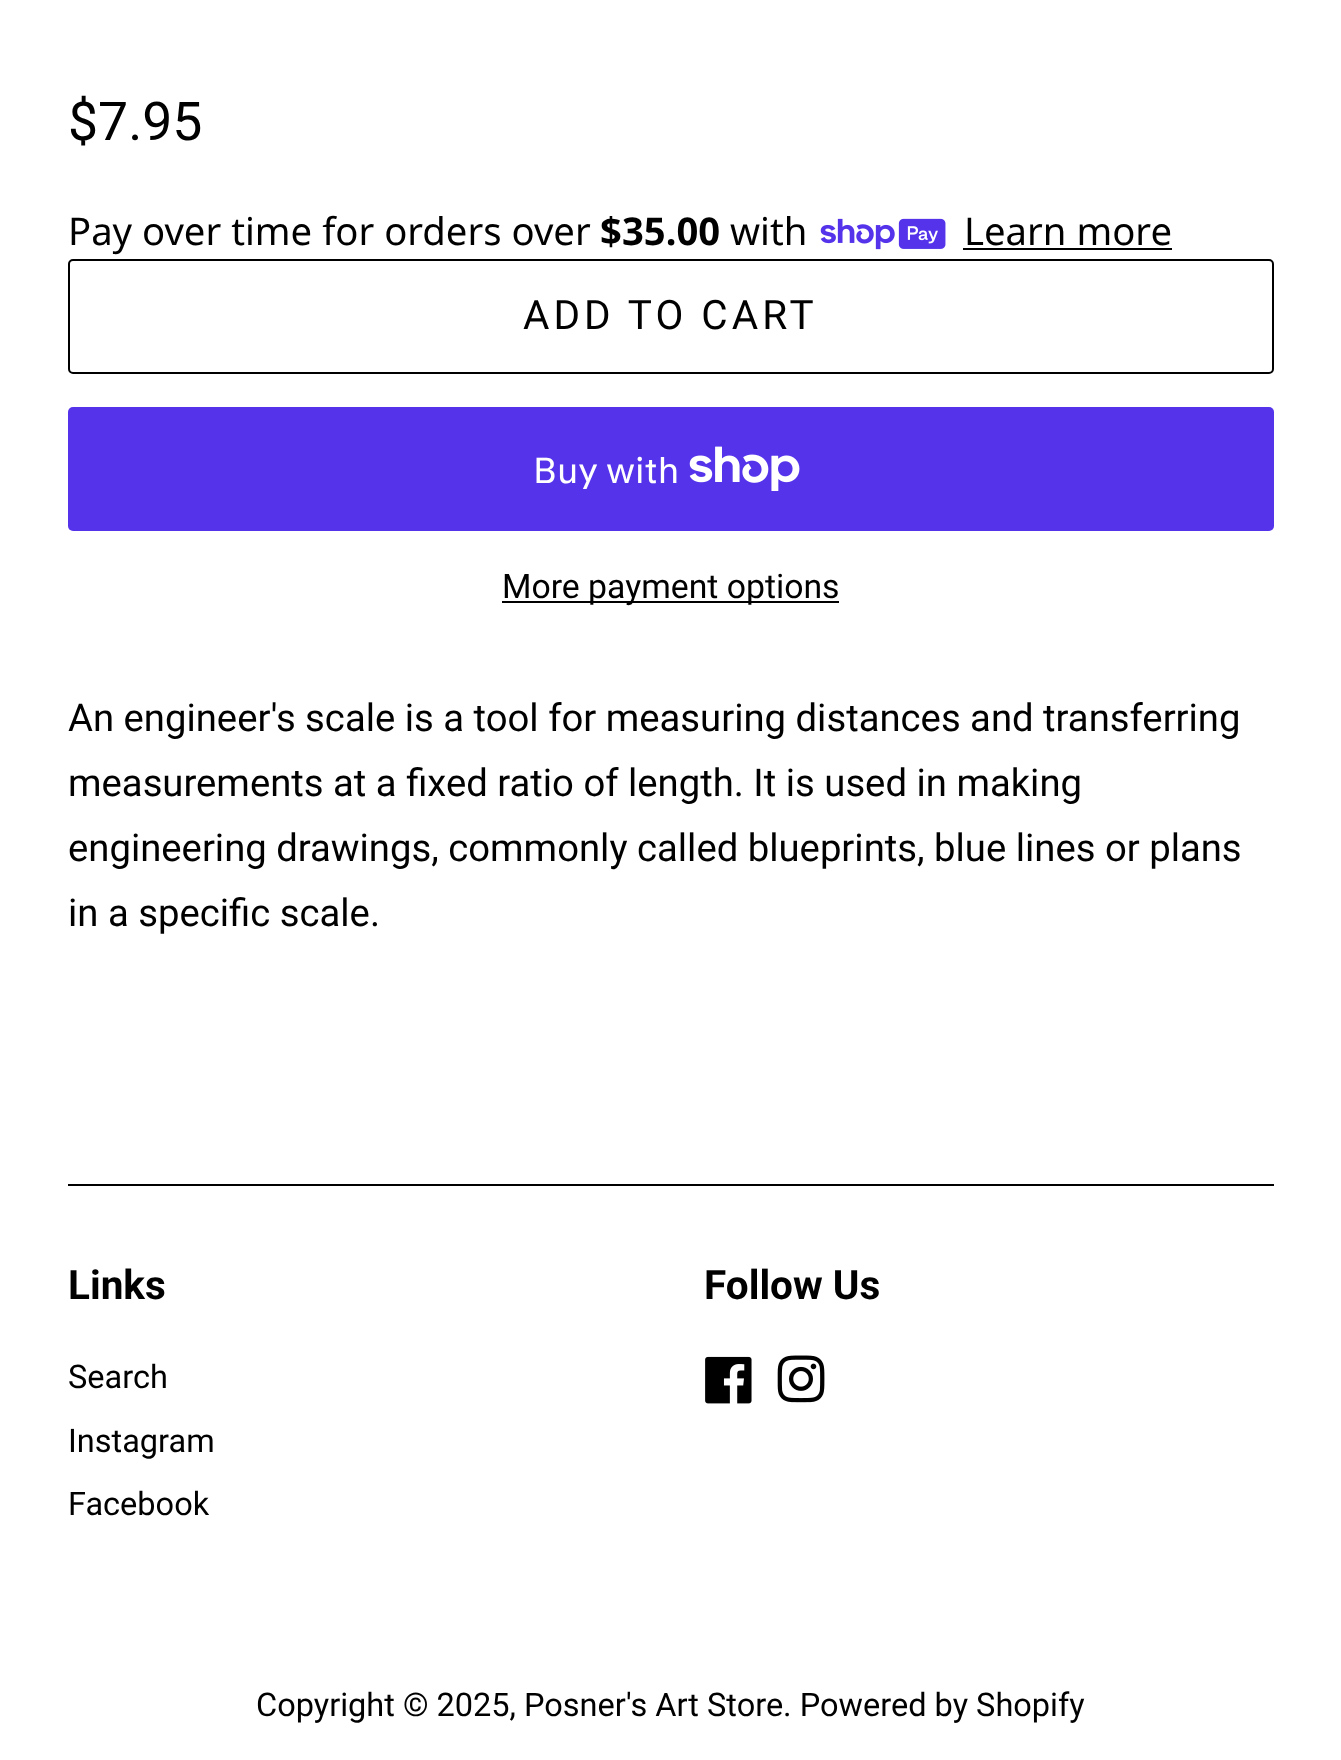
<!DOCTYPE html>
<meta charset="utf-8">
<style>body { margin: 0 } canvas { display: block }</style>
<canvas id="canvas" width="1341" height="1760"></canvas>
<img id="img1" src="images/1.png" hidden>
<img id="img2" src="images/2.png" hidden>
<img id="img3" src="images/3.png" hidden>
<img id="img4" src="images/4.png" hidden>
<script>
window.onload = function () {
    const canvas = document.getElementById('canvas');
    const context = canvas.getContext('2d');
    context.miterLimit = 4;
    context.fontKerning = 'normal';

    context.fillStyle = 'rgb(255, 255, 255)';
    context.fillRect(0, 0, 1341, 1760);
    context.drawImage(document.getElementById('img1'), 820, 218, 126, 32);
    context.fillStyle = 'rgb(0, 0, 0)';
    context.fillRect(963, 248, 209, 2);
    context.beginPath();
    context.roundRect(69, 260, 1204, 113, 4);
    context.strokeStyle = 'rgb(0, 0, 0)';
    context.lineWidth = 2;
    context.stroke();
    context.fillStyle = 'rgb(84, 51, 235)';
    context.beginPath();
    context.roundRect(68, 407, 1206, 124, 5);
    context.fill();
    context.drawImage(document.getElementById('img2'), 689, 446, 111, 45);
    context.fillStyle = 'rgb(0, 0, 0)';
    context.fillRect(502, 601, 337, 2);
    context.fillRect(68, 1184, 1206, 2);
    context.drawImage(document.getElementById('img3'), 705, 1356, 47, 48);
    context.drawImage(document.getElementById('img4'), 777, 1355, 48, 48);
    context.font = '53.5px Roboto';
    context.fillText('$7.95', 68, 140);
    context.font = '38.25px Noto Sans';
    context.fillText('Pay over time for orders over', 68, 245);
    context.font = 'bold 38.25px Noto Sans';
    context.fillText('$35.00', 600, 245);
    context.font = '38.25px Noto Sans';
    context.fillText('with', 730, 245);
    context.fillText('Learn more', 964, 245);
    context.letterSpacing = '4px';
    context.font = '40.5px Roboto';
    context.fillText('ADD TO CART', 523, 329);
    context.letterSpacing = '0px';
    context.font = '36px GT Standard';
    context.fillStyle = 'rgb(255, 255, 255)';
    context.fillText('Buy with', 533, 483);
    context.font = '33.75px Roboto';
    context.fillStyle = 'rgb(0, 0, 0)';
    context.fillText('More payment options', 502, 598);
    context.font = '38.25px Roboto';
    context.fillText('An engineer\'s scale is a tool for measuring distances and transferring', 68, 731);
    context.fillText('measurements at a fixed ratio of length. It is used in making', 68, 796);
    context.fillText('engineering drawings, commonly called blueprints, blue lines or plans', 68, 861);
    context.fillText('in a specific scale.', 68, 926);
    context.font = 'bold 40.5px Roboto';
    context.fillText('Links', 68, 1299);
    context.font = '32.5px Roboto';
    context.fillText('Search', 68, 1388);
    context.fillText('Instagram', 68, 1452);
    context.fillText('Facebook', 68, 1515);
    context.font = 'bold 40.5px Roboto';
    context.fillText('Follow Us', 704, 1299);
    context.font = '32.5px Roboto';
    context.fillText('Copyright © 2025, Posner\'s Art Store. Powered by Shopify', 256, 1716);
};
</script>
